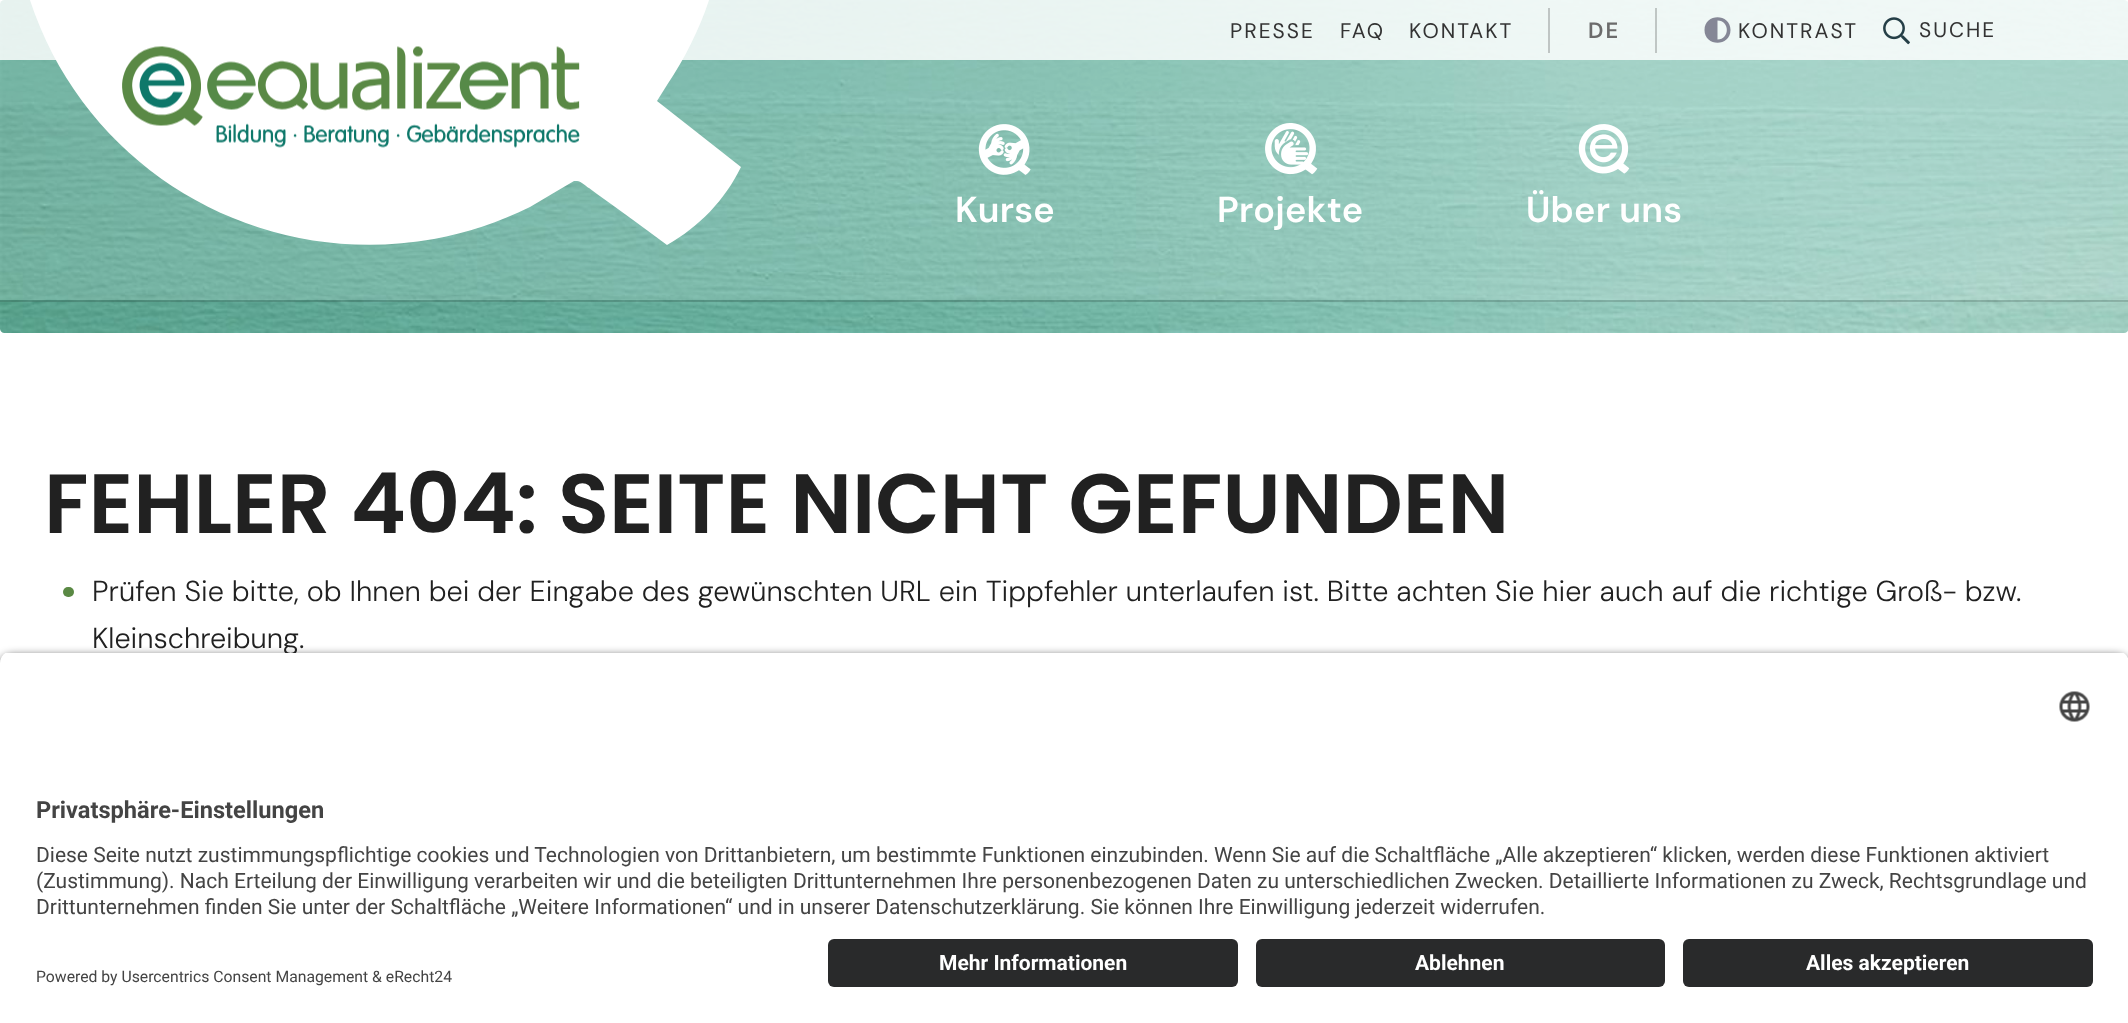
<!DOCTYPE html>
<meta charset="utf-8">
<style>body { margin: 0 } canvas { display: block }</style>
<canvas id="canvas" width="2128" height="1023"></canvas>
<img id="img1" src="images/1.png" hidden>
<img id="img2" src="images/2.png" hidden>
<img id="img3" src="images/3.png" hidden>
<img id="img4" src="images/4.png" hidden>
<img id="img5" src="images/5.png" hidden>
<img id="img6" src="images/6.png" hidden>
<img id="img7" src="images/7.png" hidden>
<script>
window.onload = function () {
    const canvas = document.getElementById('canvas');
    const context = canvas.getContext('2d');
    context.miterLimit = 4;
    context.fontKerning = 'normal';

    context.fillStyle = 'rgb(255, 255, 255)';
    context.fillRect(0, 0, 2128, 1023);
    context.drawImage(document.getElementById('img1'), 0, 0, 2128, 333);
    context.fillStyle = 'rgba(255, 255, 255, 0.85)';
    context.fillRect(0, 0, 2128, 60);
    context.fillStyle = 'rgb(191, 197, 196)';
    context.fillRect(1548, 8, 2, 45);
    context.fillStyle = 'rgb(191, 198, 196)';
    context.fillRect(1655, 8, 2, 45);
    context.fillStyle = 'rgb(133, 135, 150)';
    context.beginPath();
    context.moveTo(1704.5, 30);
    context.bezierCurveTo(1704.5, 47, 1730.5, 47, 1730.5, 30);
    context.bezierCurveTo(1730.5, 13, 1704.5, 13, 1704.5, 30);
    context.closePath();
    context.moveTo(1717.5, 39.5);
    context.lineTo(1717.5, 20.5);
    context.bezierCurveTo(1730, 20.5, 1730, 39.5, 1717.5, 39.5);
    context.closePath();
    context.fill();
    context.drawImage(document.getElementById('img2'), 1883, 17, 27, 28);
    context.fillStyle = 'rgba(0, 0, 0, 0.15)';
    context.beginPath();
    context.moveTo(0, 300);
    context.lineTo(0, 302);
    context.lineTo(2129, 302);
    context.lineTo(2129, 62);
    context.lineTo(2128, 62);
    context.lineTo(2128, 300);
    context.closePath();
    context.fill();
    context.fillStyle = 'rgba(255, 255, 255, 0.15)';
    context.fillRect(0, 60, 2128, 240);
    context.fillStyle = 'rgb(255, 255, 255)';
    context.beginPath();
    context.moveTo(667, 85);
    context.bezierCurveTo(686, 57, 701, 26, 711, -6);
    context.lineTo(28, -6);
    context.bezierCurveTo(82, 168, 256, 271, 434, 239);
    context.bezierCurveTo(467, 233, 499, 222, 530, 207);
    context.lineTo(557, 191);
    context.lineTo(574, 181);
    context.lineTo(577, 181);
    context.bezierCurveTo(581, 181, 588, 188, 589, 188);
    context.lineTo(597, 194);
    context.bezierCurveTo(621, 211, 644, 228, 667, 245);
    context.bezierCurveTo(699, 227, 725, 200, 741, 167);
    context.lineTo(657, 101);
    context.closePath();
    context.fill();
    context.drawImage(document.getElementById('img3'), 122, 46, 458, 102);
    context.drawImage(document.getElementById('img4'), 978, 124, 53, 51);
    context.drawImage(document.getElementById('img5'), 1265, 123, 53, 52);
    context.drawImage(document.getElementById('img6'), 1578, 124, 52, 50);
    context.fillStyle = 'rgb(90, 137, 68)';
    context.beginPath();
    context.roundRect(63, 587, 11, 10, 5);
    context.fill();
    context.fillStyle = 'rgba(0, 0, 0, 0.8)';
    context.filter = 'blur(5px)';
    context.beginPath();
    context.roundRect(0, 656, 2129, 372, 12);
    context.fill();
    context.filter = 'none';
    context.fillStyle = 'rgb(255, 255, 255)';
    context.fillRect(0, 927, 2128, 96);
    context.fillStyle = 'rgb(41, 42, 43)';
    context.beginPath();
    context.roundRect(828, 939, 410, 48, 6);
    context.fill();
    context.beginPath();
    context.roundRect(1256, 939, 409, 48, 6);
    context.fill();
    context.beginPath();
    context.roundRect(1683, 939, 410, 48, 6);
    context.fill();
    context.letterSpacing = '2px';
    context.font = '21px DM Sans';
    context.fillStyle = 'rgb(51, 51, 51)';
    context.fillText('PRESSE', 1230, 38);
    context.fillText('FAQ', 1340, 38);
    context.fillText('KONTAKT', 1409, 38);
    context.font = '600 22px DM Sans';
    context.fillStyle = 'rgb(108, 108, 108)';
    context.fillText('DE', 1588, 38);
    context.font = '21px DM Sans';
    context.fillStyle = 'rgb(51, 51, 51)';
    context.fillText('KONTRAST', 1738, 38);
    context.fillText('SUCHE', 1919, 37);
    context.letterSpacing = '0.25px';
    context.font = '600 36px DM Sans';
    context.fillStyle = 'rgb(255, 255, 255)';
    context.fillText('Kurse', 955, 222);
    context.fillText('Projekte', 1217, 222);
    context.fillText('Über uns', 1526, 222);
    context.letterSpacing = '0px';
    context.font = '600 84px Poppins';
    context.fillStyle = 'rgb(33, 33, 33)';
    context.fillText('FEHLER 404: SEITE NICHT GEFUNDEN', 44, 533);
    context.font = '300 28.8px DM Sans';
    context.fillText('Prüfen Sie bitte, ob Ihnen bei der Eingabe des gewünschten URL ein Tippfehler unterlaufen ist. Bitte achten Sie hier auch auf die richtige Groß- bzw.', 92, 601);
    context.fillText('Kleinschreibung.', 92, 648);
    context.save();
    context.beginPath();
    context.moveTo(12, 651);
    context.lineTo(2117, 651);
    context.bezierCurveTo(2123.5, 651, 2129, 656.5, 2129, 663);
    context.lineTo(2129, 927);
    context.lineTo(0, 927);
    context.lineTo(0, 663);
    context.bezierCurveTo(0, 656.5, 5.5, 651, 12, 651);
    context.closePath();
    context.clip();
    context.fillStyle = 'rgb(255, 255, 255)';
    context.fillRect(0, 653, 2128, 274);
    context.restore();
    context.drawImage(document.getElementById('img7'), 2059, 691, 31, 31);
    context.font = 'bold 23.6px Roboto';
    context.fillStyle = 'rgb(68, 68, 68)';
    context.fillText('Privatsphäre-Einstellungen', 36, 818);
    context.font = '21px Roboto';
    context.fillText('Diese Seite nutzt zustimmungspflichtige cookies und Technologien von Drittanbietern, um bestimmte Funktionen einzubinden. Wenn Sie auf die Schaltfläche „Alle akzeptieren“ klicken, werden diese Funktionen aktiviert', 36, 862);
    context.fillText('(Zustimmung). Nach Erteilung der Einwilligung verarbeiten wir und die beteiligten Drittunternehmen Ihre personenbezogenen Daten zu unterschiedlichen Zwecken. Detaillierte Informationen zu Zweck, Rechtsgrundlage und', 36, 888);
    context.fillText('Drittunternehmen finden Sie unter der Schaltfläche „Weitere Informationen“ und in unserer Datenschutzerklärung. Sie können Ihre Einwilligung jederzeit widerrufen.', 36, 914);
    context.font = 'bold 21px Roboto';
    context.fillStyle = 'rgb(255, 255, 255)';
    context.fillText('Mehr Informationen', 939, 970);
    context.fillText('Ablehnen', 1415, 970);
    context.fillText('Alles akzeptieren', 1806, 970);
    context.font = '15.75px Roboto';
    context.fillStyle = 'rgb(68, 68, 68)';
    context.fillText('Powered by Usercentrics Consent Management & eRecht24', 36, 982);
};
</script>
